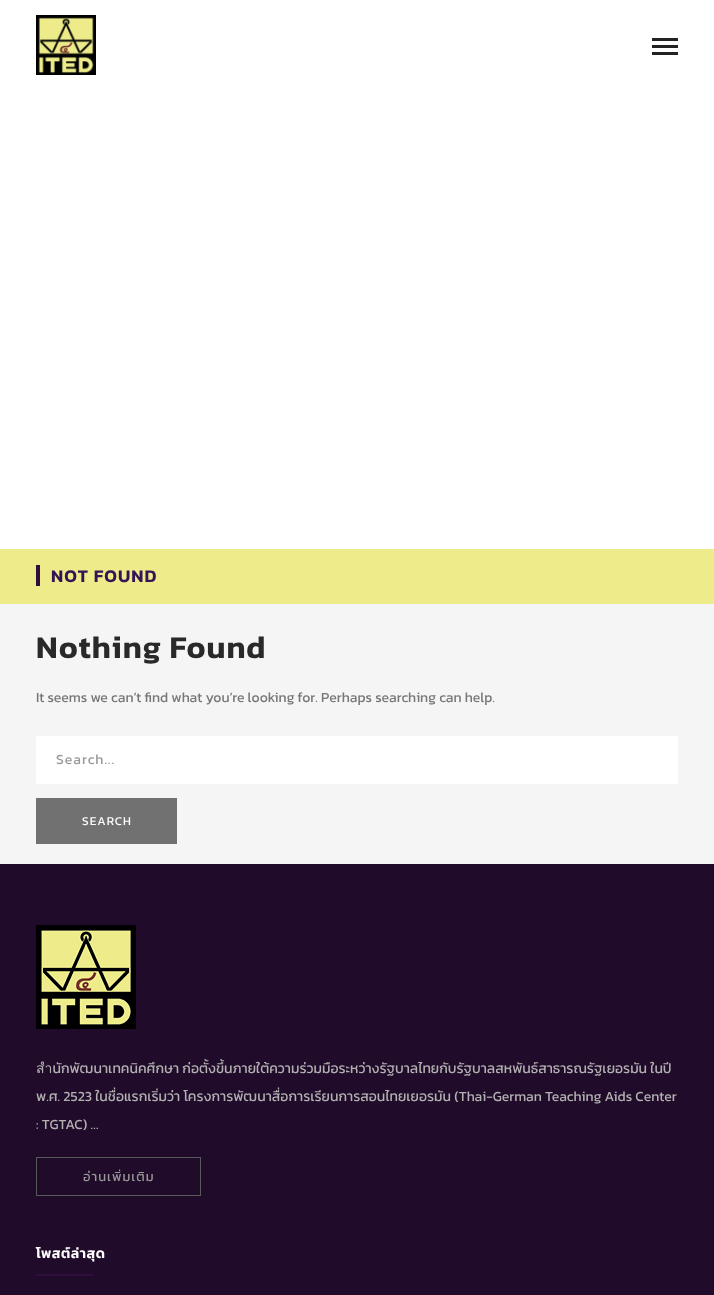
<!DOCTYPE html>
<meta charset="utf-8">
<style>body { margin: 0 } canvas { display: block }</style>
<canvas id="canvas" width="714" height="1295"></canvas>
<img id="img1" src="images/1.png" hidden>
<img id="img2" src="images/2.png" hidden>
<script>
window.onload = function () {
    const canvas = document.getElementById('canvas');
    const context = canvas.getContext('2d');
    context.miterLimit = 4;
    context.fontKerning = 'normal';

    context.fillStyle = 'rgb(255, 255, 255)';
    context.fillRect(0, 0, 714, 1295);
    context.drawImage(document.getElementById('img1'), 36, 15, 60, 60);
    context.fillStyle = 'rgb(34, 34, 34)';
    context.fillRect(652, 38, 26, 3);
    context.fillRect(652, 45, 26, 3);
    context.fillRect(652, 52, 26, 3);
    context.fillStyle = 'rgb(238, 235, 138)';
    context.fillRect(0, 549, 714, 55);
    context.fillStyle = 'rgb(48, 15, 61)';
    context.fillRect(36, 565, 4, 21);
    context.fillStyle = 'rgb(245, 245, 245)';
    context.fillRect(0, 604, 714, 260);
    context.fillStyle = 'rgb(255, 255, 255)';
    context.fillRect(36, 736, 642, 48);
    context.fillStyle = 'rgb(113, 113, 113)';
    context.fillRect(36, 798, 141, 46);
    context.fillStyle = 'rgb(33, 11, 42)';
    context.fillRect(0, 864, 714, 431);
    context.drawImage(document.getElementById('img2'), 36, 925, 100, 104);
    context.strokeStyle = 'rgb(88, 89, 91)';
    context.strokeRect(36.5, 1157.5, 164, 38);
    context.fillStyle = 'rgb(48, 15, 61)';
    context.fillRect(36, 1274, 57, 2);
    context.letterSpacing = '1px';
    context.font = '600 18px Kanit';
    context.fillStyle = 'rgb(52, 20, 84)';
    context.fillText('NOT FOUND', 51, 582);
    context.font = '600 32px Kanit';
    context.fillStyle = 'rgb(41, 41, 41)';
    context.fillText('Nothing Found', 36, 658);
    context.letterSpacing = '0px';
    context.font = '14px Kanit';
    context.fillStyle = 'rgb(119, 119, 119)';
    context.fillText('It seems we can’t find what you’re looking for. Perhaps searching can help.', 36, 702);
    context.letterSpacing = '1px';
    context.fillStyle = 'rgb(153, 153, 153)';
    context.fillText('Search...', 56, 764);
    context.font = '12px Kanit';
    context.fillStyle = 'rgb(255, 255, 255)';
    context.fillText('SEARCH', 82, 825);
    context.letterSpacing = '0px';
    context.font = '14px Kanit';
    context.fillStyle = 'rgb(177, 177, 177)';
    context.fillText('สำนักพัฒนาเทคนิคศึกษา ก่อตั้งขึ้นภายใต้ความร่วมมือระหว่างรัฐบาลไทยกับรัฐบาลสหพันธ์สาธารณรัฐเยอรมัน ในปี', 36, 1073);
    context.fillText('พ.ศ. 2523 ในชื่อแรกเริ่มว่า โครงการพัฒนาสื่อการเรียนการสอนไทยเยอรมัน (Thai-German Teaching Aids Center', 36, 1101);
    context.fillText(': TGTAC) …', 36, 1129);
    context.letterSpacing = '1px';
    context.font = '13px Kanit';
    context.fillStyle = 'rgb(153, 153, 153)';
    context.fillText('อ่านเพิ่มเติม', 83, 1181);
    context.letterSpacing = '0.5px';
    context.font = '600 14px Kanit';
    context.fillStyle = 'rgb(255, 255, 255)';
    context.fillText('โพสต์ล่าสุด', 36, 1258);
};
</script>
